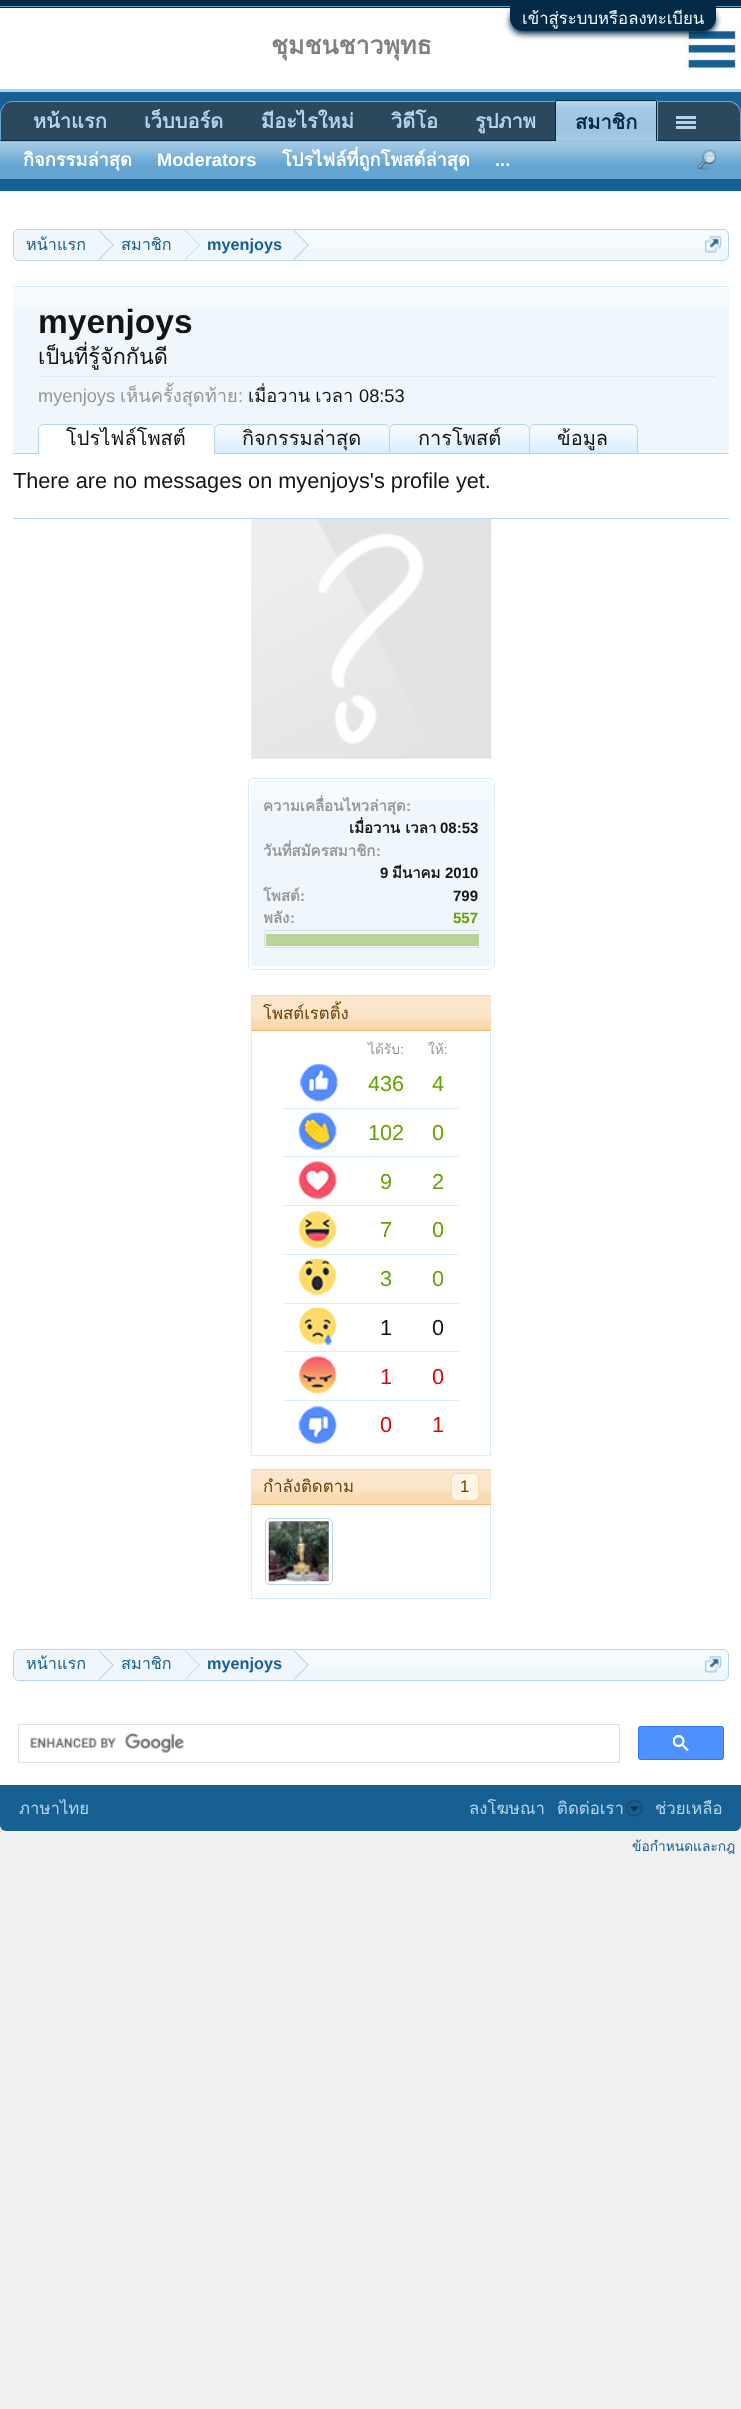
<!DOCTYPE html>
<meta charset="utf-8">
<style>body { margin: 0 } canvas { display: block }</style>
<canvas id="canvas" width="741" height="2409"></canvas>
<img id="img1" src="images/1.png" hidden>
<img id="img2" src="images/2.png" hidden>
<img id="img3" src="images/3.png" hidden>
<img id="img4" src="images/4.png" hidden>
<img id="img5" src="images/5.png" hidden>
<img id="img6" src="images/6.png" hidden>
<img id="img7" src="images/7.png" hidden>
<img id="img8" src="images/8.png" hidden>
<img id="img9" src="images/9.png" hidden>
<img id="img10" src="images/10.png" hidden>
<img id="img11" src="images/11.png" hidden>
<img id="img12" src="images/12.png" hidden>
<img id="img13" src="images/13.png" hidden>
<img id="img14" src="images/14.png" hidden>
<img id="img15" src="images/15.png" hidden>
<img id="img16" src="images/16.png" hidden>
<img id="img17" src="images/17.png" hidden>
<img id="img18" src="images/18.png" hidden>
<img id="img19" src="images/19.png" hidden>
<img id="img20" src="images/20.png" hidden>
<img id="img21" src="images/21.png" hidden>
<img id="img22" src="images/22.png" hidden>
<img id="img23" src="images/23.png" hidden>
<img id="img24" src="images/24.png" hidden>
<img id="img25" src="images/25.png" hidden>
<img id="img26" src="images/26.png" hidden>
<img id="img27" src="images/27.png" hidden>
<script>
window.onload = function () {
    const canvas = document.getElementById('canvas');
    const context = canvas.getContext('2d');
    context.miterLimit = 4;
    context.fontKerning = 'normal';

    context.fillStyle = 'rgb(240, 240, 240)';
    context.fillRect(0, 0, 741, 2409);
    context.fillStyle = 'rgb(3, 42, 70)';
    context.fillRect(0, 0, 741, 8);
    context.fillStyle = 'rgb(101, 165, 209)';
    context.fillRect(0, 6, 741, 1);
    context.fillStyle = 'rgb(255, 255, 255)';
    context.fillRect(0, 8, 741, 81);
    context.drawImage(document.getElementById('img1'), 682, 26, 59, 43);
    context.fillStyle = 'rgb(3, 42, 70)';
    context.filter = 'blur(3px)';
    context.beginPath();
    context.roundRect(510, 8, 206, 26, 13);
    context.fill();
    context.filter = 'none';
    context.beginPath();
    context.roundRect(510, 5, 206, 26, [0, 0, 13, 13]);
    context.fill();
    context.fillStyle = 'rgb(172, 213, 241)';
    context.fillRect(0, 89, 741, 3);
    context.fillStyle = 'rgb(23, 96, 147)';
    context.fillRect(0, 92, 741, 99);
    context.fillStyle = 'rgb(43, 72, 92)';
    context.beginPath();
    context.roundRect(0, 101, 741, 40, [13, 13, 0, 0]);
    context.fill();
    context.fillStyle = 'rgb(101, 165, 209)';
    context.beginPath();
    context.moveTo(12, 102);
    context.bezierCurveTo(9, 102, 6, 103, 4, 106);
    context.lineTo(4, 105);
    context.bezierCurveTo(5, 103, 8, 102, 10, 101);
    context.lineTo(731, 101);
    context.bezierCurveTo(734, 102, 736, 103, 738, 105);
    context.lineTo(737, 106);
    context.bezierCurveTo(735, 104, 732, 102, 729, 102);
    context.closePath();
    context.fill();
    context.beginPath();
    context.moveTo(737.5, 105);
    context.bezierCurveTo(740, 107, 741, 110.5, 741, 114);
    context.lineTo(741, 141);
    context.lineTo(740, 140);
    context.lineTo(740, 114);
    context.bezierCurveTo(740, 111, 739, 108, 737, 106);
    context.closePath();
    context.fill();
    context.fillStyle = 'rgb(3, 42, 70)';
    context.beginPath();
    context.moveTo(741, 141);
    context.lineTo(740, 140);
    context.lineTo(1, 140);
    context.lineTo(0, 141);
    context.closePath();
    context.fill();
    context.fillStyle = 'rgb(101, 165, 209)';
    context.beginPath();
    context.moveTo(0, 114);
    context.lineTo(0, 141);
    context.lineTo(1, 140);
    context.lineTo(1, 114);
    context.bezierCurveTo(1, 111, 2.5, 108, 4.5, 105.5);
    context.lineTo(3.5, 105);
    context.bezierCurveTo(1.5, 107.5, 0, 110.5, 0, 114);
    context.closePath();
    context.fill();
    context.beginPath();
    context.roundRect(555, 100, 103, 41, [2.5, 2.5, 0, 0]);
    context.fill();
    context.drawImage(document.getElementById('img2'), 556, 101, 102, 40);
    context.fillStyle = 'rgb(3, 42, 70)';
    context.fillRect(556, 100, 100, 1);
    context.fillRect(656, 101, 1, 40);
    context.fillRect(555, 101, 1, 40);
    context.fillStyle = 'rgb(101, 165, 209)';
    context.fillRect(0, 141, 741, 38);
    context.drawImage(document.getElementById('img3'), 0, 141, 741, 24);
    context.fillStyle = 'rgb(180, 213, 236)';
    context.fillRect(676, 116, 20, 3);
    context.fillRect(676, 121, 20, 3);
    context.fillRect(676, 126, 20, 3);
    context.drawImage(document.getElementById('img4'), 697, 150, 20, 20);
    context.fillStyle = 'rgb(255, 255, 255)';
    context.fillRect(0, 191, 741, 1594);
    context.fillStyle = 'rgb(240, 247, 252)';
    context.beginPath();
    context.roundRect(13, 229, 716, 32, 6);
    context.fill();
    context.drawImage(document.getElementById('img5'), 13, 230, 715, 19);
    context.beginPath();
    context.roundRect(13.5, 229.5, 715, 31, 5.5);
    context.strokeStyle = 'rgb(180, 213, 236)';
    context.stroke();
    context.save();
    context.beginPath();
    context.roundRect(14, 230, 714, 30, 5);
    context.clip();
    context.beginPath();
    context.roundRect(14, 230, 85, 31, [6, 0, 0, 6]);
    context.fill();
    context.restore();
    context.fillRect(99, 230, 195, 19);
    context.fillStyle = 'rgb(180, 213, 236)';
    context.beginPath();
    context.moveTo(99, 260);
    context.lineTo(99, 230);
    context.lineTo(114, 245);
    context.closePath();
    context.fill();
    context.fillStyle = 'rgb(240, 247, 252)';
    context.beginPath();
    context.moveTo(97.5, 260);
    context.lineTo(97.5, 230);
    context.lineTo(112.5, 245);
    context.closePath();
    context.fill();
    context.fillStyle = 'rgb(180, 213, 236)';
    context.beginPath();
    context.moveTo(185, 260);
    context.lineTo(185, 230);
    context.lineTo(200, 245);
    context.closePath();
    context.fill();
    context.fillStyle = 'rgb(240, 247, 252)';
    context.beginPath();
    context.moveTo(184, 260);
    context.lineTo(184, 230);
    context.lineTo(199, 245);
    context.closePath();
    context.fill();
    context.fillStyle = 'rgb(180, 213, 236)';
    context.beginPath();
    context.moveTo(294, 260);
    context.lineTo(294, 230);
    context.lineTo(309, 245);
    context.closePath();
    context.fill();
    context.fillStyle = 'rgb(240, 247, 252)';
    context.beginPath();
    context.moveTo(292.5, 260);
    context.lineTo(292.5, 230);
    context.lineTo(307.5, 245);
    context.closePath();
    context.fill();
    context.drawImage(document.getElementById('img6'), 705, 236, 17, 17);
    context.fillStyle = 'rgb(180, 213, 236)';
    context.fillRect(13, 518, 716, 1);
    context.fillStyle = 'rgb(215, 237, 252)';
    context.fillRect(13, 286, 716, 1);
    context.fillStyle = 'rgb(240, 247, 252)';
    context.fillRect(13, 288, 716, 165);
    context.drawImage(document.getElementById('img7'), 13, 288, 715, 19);
    context.fillStyle = 'rgb(215, 237, 252)';
    context.fillRect(38, 376, 678, 1);
    context.fillStyle = 'rgb(180, 213, 236)';
    context.fillRect(13, 453, 716, 1);
    context.fillStyle = 'rgb(255, 255, 255)';
    context.beginPath();
    context.roundRect(38, 424, 177, 30, [6, 6, 0, 0]);
    context.fill();
    context.drawImage(document.getElementById('img8'), 38, 425, 2, 3);
    context.fillStyle = 'rgb(180, 213, 236)';
    context.beginPath();
    context.moveTo(44, 424);
    context.lineTo(209, 424);
    context.bezierCurveTo(212, 424, 215, 427, 215, 430);
    context.lineTo(215, 454);
    context.lineTo(38, 454);
    context.lineTo(38, 430);
    context.bezierCurveTo(38, 427, 40, 424, 44, 424);
    context.closePath();
    context.moveTo(44, 425);
    context.lineTo(209, 425);
    context.bezierCurveTo(212, 425, 214, 427, 214, 430);
    context.lineTo(214, 454);
    context.lineTo(39, 454);
    context.lineTo(39, 430);
    context.bezierCurveTo(39, 427, 41, 425, 44, 425);
    context.closePath();
    context.fill('evenodd');
    context.fillStyle = 'rgb(215, 237, 252)';
    context.beginPath();
    context.roundRect(214, 424, 176, 30, [6, 6, 0, 0]);
    context.fill();
    context.drawImage(document.getElementById('img9'), 214, 425, 176, 26);
    context.beginPath();
    context.roundRect(214.5, 424.5, 175, 29, [5.5, 5.5, 0, 0]);
    context.stroke();
    context.beginPath();
    context.roundRect(389, 424, 141, 30, [6, 6, 0, 0]);
    context.fill();
    context.drawImage(document.getElementById('img10'), 389, 425, 141, 26);
    context.beginPath();
    context.roundRect(389.5, 424.5, 140, 29, [5.5, 5.5, 0, 0]);
    context.stroke();
    context.beginPath();
    context.roundRect(529, 424, 109, 30, [6, 6, 0, 0]);
    context.fill();
    context.drawImage(document.getElementById('img11'), 529, 425, 109, 26);
    context.beginPath();
    context.roundRect(529.5, 424.5, 108, 29, [5.5, 5.5, 0, 0]);
    context.stroke();
    context.drawImage(document.getElementById('img12'), 251, 518, 241, 241);
    context.beginPath();
    context.roundRect(248.5, 778.5, 246, 191, 4.5);
    context.strokeStyle = 'rgb(215, 237, 252)';
    context.stroke();
    context.fillStyle = 'rgb(240, 247, 252)';
    context.fillRect(251, 781, 240, 185);
    context.drawImage(document.getElementById('img13'), 252, 782, 239, 19);
    context.save();
    context.beginPath();
    context.rect(264, 929, 215, 25);
    context.clip();
    context.beginPath();
    context.roundRect(264.5, 930.5, 241, 17, 2);
    context.strokeStyle = 'rgb(221, 221, 221)';
    context.stroke();
    context.restore();
    context.fillStyle = 'rgb(183, 213, 152)';
    context.fillRect(266, 934, 213, 12);
    context.fillStyle = 'rgb(249, 217, 176)';
    context.fillRect(251, 995, 240, 35);
    context.drawImage(document.getElementById('img14'), 251, 996, 240, 27);
    context.fillStyle = 'rgb(249, 188, 109)';
    context.fillRect(251, 1030, 240, 1);
    context.fillStyle = 'rgb(215, 237, 252)';
    context.fillRect(251, 1455, 240, 1);
    context.fillRect(490, 1031, 1, 424);
    context.fillRect(251, 1031, 1, 424);
    context.drawImage(document.getElementById('img15'), 299, 1063, 39, 39);
    context.fillRect(284, 1108, 175, 1);
    context.drawImage(document.getElementById('img16'), 298, 1112, 39, 39);
    context.fillRect(284, 1156, 175, 1);
    context.drawImage(document.getElementById('img17'), 298, 1161, 39, 38);
    context.fillRect(284, 1205, 175, 1);
    context.drawImage(document.getElementById('img18'), 298, 1211, 39, 37);
    context.fillRect(284, 1254, 175, 1);
    context.drawImage(document.getElementById('img19'), 298, 1258, 39, 38);
    context.fillRect(284, 1303, 175, 1);
    context.drawImage(document.getElementById('img20'), 298, 1307, 39, 39);
    context.fillRect(284, 1351, 175, 1);
    context.drawImage(document.getElementById('img21'), 298, 1356, 39, 38);
    context.fillRect(284, 1400, 175, 1);
    context.drawImage(document.getElementById('img22'), 298, 1406, 39, 38);
    context.fillStyle = 'rgb(249, 217, 176)';
    context.fillRect(251, 1469, 240, 35);
    context.drawImage(document.getElementById('img23'), 251, 1470, 240, 27);
    context.fillStyle = 'rgb(249, 188, 109)';
    context.fillRect(251, 1504, 240, 1);
    context.fillStyle = 'rgb(255, 244, 229)';
    context.beginPath();
    context.roundRect(451.5, 1473.5, 27, 27, 5.5);
    context.fill();
    context.strokeStyle = 'rgb(249, 217, 176)';
    context.stroke();
    context.fillStyle = 'rgb(215, 237, 252)';
    context.fillRect(490, 1505, 1, 94);
    context.fillRect(251, 1598, 240, 1);
    context.fillRect(251, 1505, 1, 94);
    context.drawImage(document.getElementById('img24'), 268, 1521, 61, 61);
    context.beginPath();
    context.roundRect(265.5, 1518.5, 67, 66, 4.5);
    context.strokeStyle = 'rgb(180, 213, 236)';
    context.stroke();
    context.fillStyle = 'rgb(240, 247, 252)';
    context.beginPath();
    context.roundRect(13, 1649, 716, 32, 6);
    context.fill();
    context.drawImage(document.getElementById('img5'), 13, 1650, 715, 19);
    context.beginPath();
    context.roundRect(13.5, 1649.5, 715, 31, 5.5);
    context.stroke();
    context.save();
    context.beginPath();
    context.roundRect(14, 1650, 714, 30, 5);
    context.clip();
    context.beginPath();
    context.roundRect(14, 1650, 85, 31, [6, 0, 0, 6]);
    context.fill();
    context.restore();
    context.fillRect(99, 1650, 195, 19);
    context.fillStyle = 'rgb(180, 213, 236)';
    context.beginPath();
    context.moveTo(99, 1680);
    context.lineTo(99, 1650);
    context.lineTo(114, 1665);
    context.closePath();
    context.fill();
    context.fillStyle = 'rgb(240, 247, 252)';
    context.beginPath();
    context.moveTo(97.5, 1680);
    context.lineTo(97.5, 1650);
    context.lineTo(112.5, 1665);
    context.closePath();
    context.fill();
    context.fillStyle = 'rgb(180, 213, 236)';
    context.beginPath();
    context.moveTo(185, 1680);
    context.lineTo(185, 1650);
    context.lineTo(200, 1665);
    context.closePath();
    context.fill();
    context.fillStyle = 'rgb(240, 247, 252)';
    context.beginPath();
    context.moveTo(184, 1680);
    context.lineTo(184, 1650);
    context.lineTo(199, 1665);
    context.closePath();
    context.fill();
    context.fillStyle = 'rgb(180, 213, 236)';
    context.beginPath();
    context.moveTo(294, 1680);
    context.lineTo(294, 1650);
    context.lineTo(309, 1665);
    context.closePath();
    context.fill();
    context.fillStyle = 'rgb(240, 247, 252)';
    context.beginPath();
    context.moveTo(292.5, 1680);
    context.lineTo(292.5, 1650);
    context.lineTo(307.5, 1665);
    context.closePath();
    context.fill();
    context.drawImage(document.getElementById('img6'), 705, 1656, 17, 17);
    context.strokeStyle = 'rgb(223, 225, 229)';
    context.strokeRect(18.5, 1724.5, 601, 38);
    context.drawImage(document.getElementById('img25'), 30, 1733, 154, 20);
    context.fillStyle = 'rgb(77, 144, 254)';
    context.beginPath();
    context.roundRect(638.5, 1726.5, 85, 33, 2);
    context.fill();
    context.strokeStyle = 'rgb(48, 121, 237)';
    context.stroke();
    context.drawImage(document.getElementById('img26'), 673, 1735, 16, 16);
    context.fillStyle = 'rgb(23, 96, 147)';
    context.beginPath();
    context.roundRect(0, 1785, 741, 46, [0, 0, 6, 6]);
    context.fill();
    context.drawImage(document.getElementById('img27'), 626, 1800, 17, 17);
    context.font = '16.75px Loma';
    context.fillStyle = 'rgb(240, 247, 252)';
    context.fillText('เข้าสู่ระบบหรือลงทะเบียน', 522, 24);
    context.font = 'bold 25px Loma';
    context.fillStyle = 'rgb(128, 128, 128)';
    context.fillText('ชุมชนชาวพุทธ', 271, 54);
    context.font = 'bold 20px Loma';
    context.fillStyle = 'rgb(180, 213, 236)';
    context.fillText('หน้าแรก', 33, 128);
    context.fillText('เว็บบอร์ด', 144, 128);
    context.fillText('มีอะไรใหม่', 261, 128);
    context.fillText('วิดีโอ', 391, 128);
    context.fillStyle = 'rgb(3, 42, 70)';
    context.fillText('สมาชิก', 575, 129);
    context.font = 'bold 18.25px Loma';
    context.fillStyle = 'rgb(255, 255, 255)';
    context.fillText('กิจกรรมล่าสุด', 23, 166);
    context.font = 'bold 18.25px Liberation Sans';
    context.fillText('Moderators', 157, 166);
    context.font = 'bold 18.25px Loma';
    context.fillText('โปรไฟล์ที่ถูกโพสต์ล่าสุด', 282, 166);
    context.font = 'bold 18.25px Liberation Sans';
    context.fillText('...', 495, 166);
    context.font = 'bold 20px Loma';
    context.fillStyle = 'rgb(180, 213, 236)';
    context.fillText('รูปภาพ', 475, 128);
    context.font = '16.25px Loma';
    context.fillStyle = 'rgb(23, 96, 147)';
    context.fillText('หน้าแรก', 26, 250);
    context.fillText('สมาชิก', 121, 250);
    context.font = 'bold 16.25px Liberation Sans';
    context.fillText('myenjoys', 207, 250);
    context.font = 'bold 33.5px Liberation Sans';
    context.fillStyle = 'rgb(20, 20, 20)';
    context.fillText('myenjoys', 38, 333);
    context.font = '21.7px Loma';
    context.fillText('เป็นที่รู้จักกันดี', 38, 364);
    context.font = '18.25px Liberation Sans';
    context.fillStyle = 'rgb(150, 150, 150)';
    context.fillText('myenjoys', 38, 402);
    context.font = '18.25px Loma';
    context.fillText('เห็นครั้งสุดท้าย', 120, 402);
    context.font = '18.25px Liberation Sans';
    context.fillText(':', 238, 402);
    context.wordSpacing = '-1px';
    context.font = '18.25px Loma';
    context.fillStyle = 'rgb(20, 20, 20)';
    context.fillText('เมื่อวาน เวลา', 248, 402);
    context.wordSpacing = '0px';
    context.font = '18.25px Liberation Sans';
    context.fillText('08:53', 359, 402);
    context.font = '20px Loma';
    context.fillText('โปรไฟล์โพสต์', 66, 445);
    context.fillText('กิจกรรมล่าสุด', 242, 445);
    context.fillText('การโพสต์', 418, 445);
    context.fillText('ข้อมูล', 557, 445);
    context.font = '21.7px Liberation Sans';
    context.fillText('There are no messages on myenjoys\'s profile yet.', 13, 488);
    context.font = 'bold 15px Loma';
    context.fillStyle = 'rgb(150, 150, 150)';
    context.fillText('ความเคลื่อนไหวล่าสุด', 263, 811);
    context.font = 'bold 15px Liberation Sans';
    context.fillText(':', 406, 811);
    context.font = 'bold 15px Loma';
    context.fillStyle = 'rgb(20, 20, 20)';
    context.fillText('เมื่อวาน เวลา', 349, 833);
    context.font = 'bold 15px Liberation Sans';
    context.fillText('08:53', 440, 833);
    context.save();
    context.beginPath();
    context.rect(264, 839, 215, 45);
    context.clip();
    context.font = 'bold 15px Loma';
    context.fillStyle = 'rgb(150, 150, 150)';
    context.fillText('วันที่สมัครสมาชิก', 263, 856);
    context.restore();
    context.fillStyle = 'rgb(150, 150, 150)';
    context.fillText(':', 376, 856);
    context.fillStyle = 'rgb(20, 20, 20)';
    context.fillText('9', 380, 878);
    context.font = 'bold 15px Loma';
    context.fillText('มีนาคม', 392, 878);
    context.font = 'bold 15px Liberation Sans';
    context.fillText('2010', 445, 878);
    context.font = 'bold 15px Loma';
    context.fillStyle = 'rgb(150, 150, 150)';
    context.fillText('โพสต์', 263, 901);
    context.font = 'bold 15px Liberation Sans';
    context.fillText(':', 300, 901);
    context.fillStyle = 'rgb(20, 20, 20)';
    context.fillText('799', 453, 901);
    context.save();
    context.beginPath();
    context.rect(264, 906, 215, 23);
    context.clip();
    context.font = 'bold 15px Loma';
    context.fillStyle = 'rgb(150, 150, 150)';
    context.fillText('พลัง', 263, 923);
    context.restore();
    context.fillStyle = 'rgb(150, 150, 150)';
    context.fillText(':', 290, 923);
    context.fillStyle = 'rgb(98, 162, 1)';
    context.fillText('557', 453, 923);
    context.font = '16.75px Loma';
    context.fillStyle = 'rgb(109, 63, 3)';
    context.fillText('โพสต์เรตติ้ง', 263, 1019);
    context.font = '13.75px Loma';
    context.fillStyle = 'rgb(150, 150, 150)';
    context.fillText('ได้รับ:', 368, 1054);
    context.fillText('ให้:', 428, 1054);
    context.font = '21.7px Liberation Sans';
    context.fillStyle = 'rgb(98, 162, 1)';
    context.fillText('436', 368, 1091);
    context.fillText('4', 432, 1091);
    context.fillText('102', 368, 1140);
    context.fillText('0', 432, 1140);
    context.fillText('9', 380, 1189);
    context.fillText('2', 432, 1189);
    context.fillText('7', 380, 1237);
    context.fillText('0', 432, 1237);
    context.fillText('3', 380, 1286);
    context.fillText('0', 432, 1286);
    context.fillStyle = 'rgb(20, 20, 20)';
    context.fillText('1', 380, 1335);
    context.fillText('0', 432, 1335);
    context.fillStyle = 'rgb(217, 11, 0)';
    context.fillText('1', 380, 1384);
    context.fillText('0', 432, 1384);
    context.fillText('0', 380, 1432);
    context.fillText('1', 432, 1432);
    context.font = '16.75px Loma';
    context.fillStyle = 'rgb(109, 63, 3)';
    context.fillText('กำลังติดตาม', 263, 1492);
    context.font = '16.75px Liberation Sans';
    context.fillText('1', 460, 1492);
    context.font = '16.25px Loma';
    context.fillStyle = 'rgb(23, 96, 147)';
    context.fillText('หน้าแรก', 26, 1669);
    context.fillText('สมาชิก', 121, 1669);
    context.font = 'bold 16.25px Liberation Sans';
    context.fillText('myenjoys', 207, 1669);
    context.font = '16.75px Loma';
    context.fillStyle = 'rgb(180, 213, 236)';
    context.fillText('ภาษาไทย', 19, 1814);
    context.fillText('ลงโฆษณา', 469, 1814);
    context.fillText('ติดต่อเรา', 557, 1814);
    context.fillText('ช่วยเหลือ', 655, 1814);
    context.font = '13.75px Loma';
    context.fillStyle = 'rgb(23, 96, 147)';
    context.fillText('ข้อกำหนดและกฎ', 632, 1851);
};
</script>
